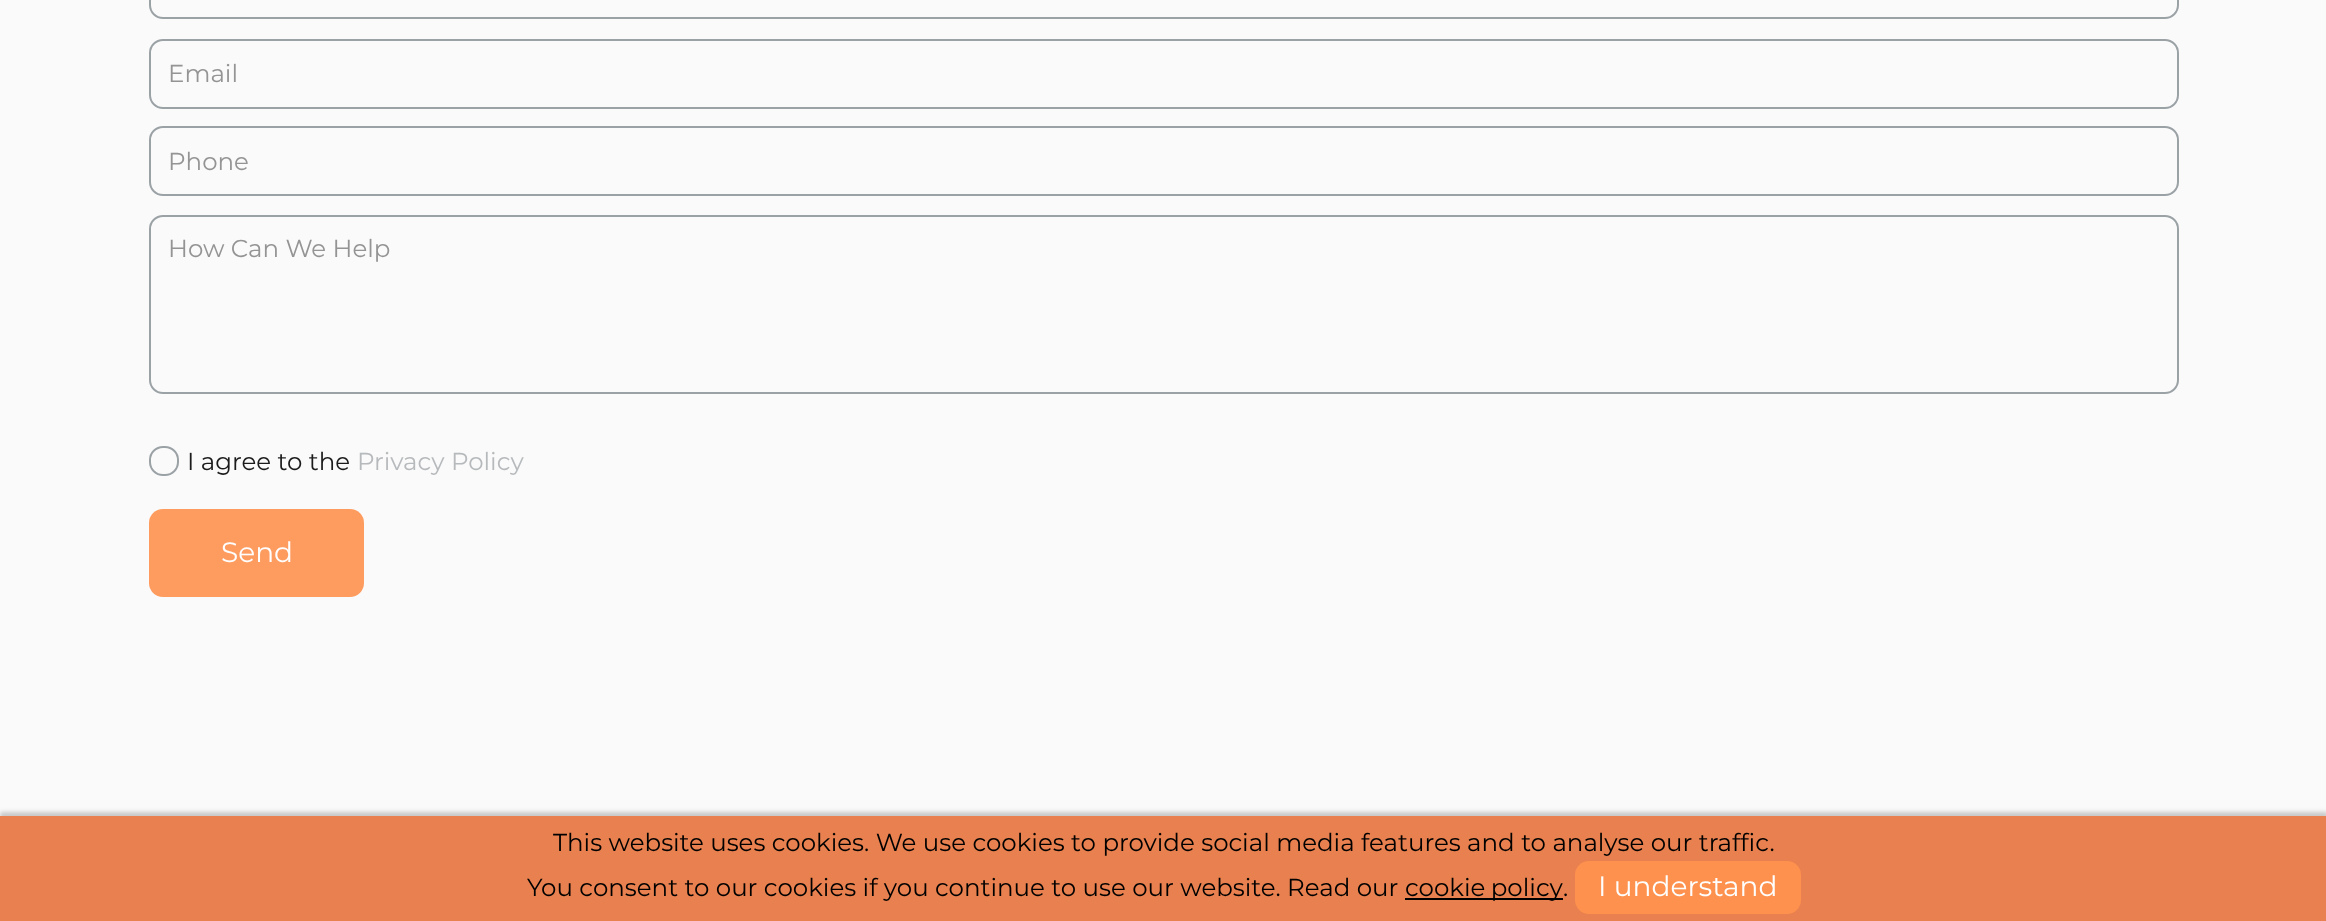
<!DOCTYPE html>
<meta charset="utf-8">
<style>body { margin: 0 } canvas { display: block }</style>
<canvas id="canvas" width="2326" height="921"></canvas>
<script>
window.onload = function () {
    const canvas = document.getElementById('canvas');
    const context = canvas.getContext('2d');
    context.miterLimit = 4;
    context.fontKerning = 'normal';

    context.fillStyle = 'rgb(250, 250, 250)';
    context.fillRect(0, 0, 2326, 921);
    context.beginPath();
    context.roundRect(150, -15, 2028, 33, 13);
    context.strokeStyle = 'rgb(155, 162, 166)';
    context.lineWidth = 2;
    context.stroke();
    context.beginPath();
    context.roundRect(150, 40, 2028, 68, 13);
    context.stroke();
    context.beginPath();
    context.roundRect(150, 127, 2028, 68, 13);
    context.stroke();
    context.beginPath();
    context.roundRect(150, 216, 2028, 177, 13);
    context.stroke();
    context.beginPath();
    context.roundRect(150, 447, 28, 28, 13);
    context.stroke();
    context.fillStyle = 'rgb(254, 156, 96)';
    context.beginPath();
    context.roundRect(149, 509, 215, 88, 14);
    context.fill();
    context.fillStyle = 'rgba(0, 0, 0, 0.2)';
    context.filter = 'blur(2px)';
    context.beginPath();
    context.rect(0, 812, 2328, 107);
    context.fill();
    context.filter = 'none';
    context.fillStyle = 'rgb(232, 128, 79)';
    context.fillRect(0, 816, 2326, 105);
    context.fillStyle = 'rgb(0, 0, 0)';
    context.fillRect(1405, 898, 158, 2);
    context.fillStyle = 'rgb(254, 145, 77)';
    context.beginPath();
    context.roundRect(1575, 861, 226, 53, 14);
    context.fill();
    context.font = '24.5px Montserrat';
    context.fillStyle = 'rgb(148, 148, 148)';
    context.fillText('Email', 168, 82);
    context.fillText('Phone', 168, 170);
    context.fillText('How Can We Help', 168, 257);
    context.fillStyle = 'rgb(27, 27, 27)';
    context.fillText('I agree to the', 187, 470);
    context.fillStyle = 'rgb(183, 186, 188)';
    context.fillText('Privacy Policy', 357, 470);
    context.font = '28px Montserrat';
    context.fillStyle = 'rgb(254, 254, 254)';
    context.fillText('Send', 221, 562);
    context.font = '24.5px Montserrat';
    context.fillStyle = 'rgb(0, 0, 0)';
    context.fillText('This website uses cookies. We use cookies to provide social media features and to analyse our traffic.', 553, 851);
    context.fillText('You consent to our cookies if you continue to use our website. Read our', 527, 896);
    context.wordSpacing = '-1px';
    context.fillText('cookie policy', 1405, 896);
    context.wordSpacing = '0px';
    context.fillText('.', 1563, 896);
    context.font = '28px Montserrat';
    context.fillStyle = 'rgb(254, 254, 254)';
    context.fillText('I understand', 1598, 896);
};
</script>
